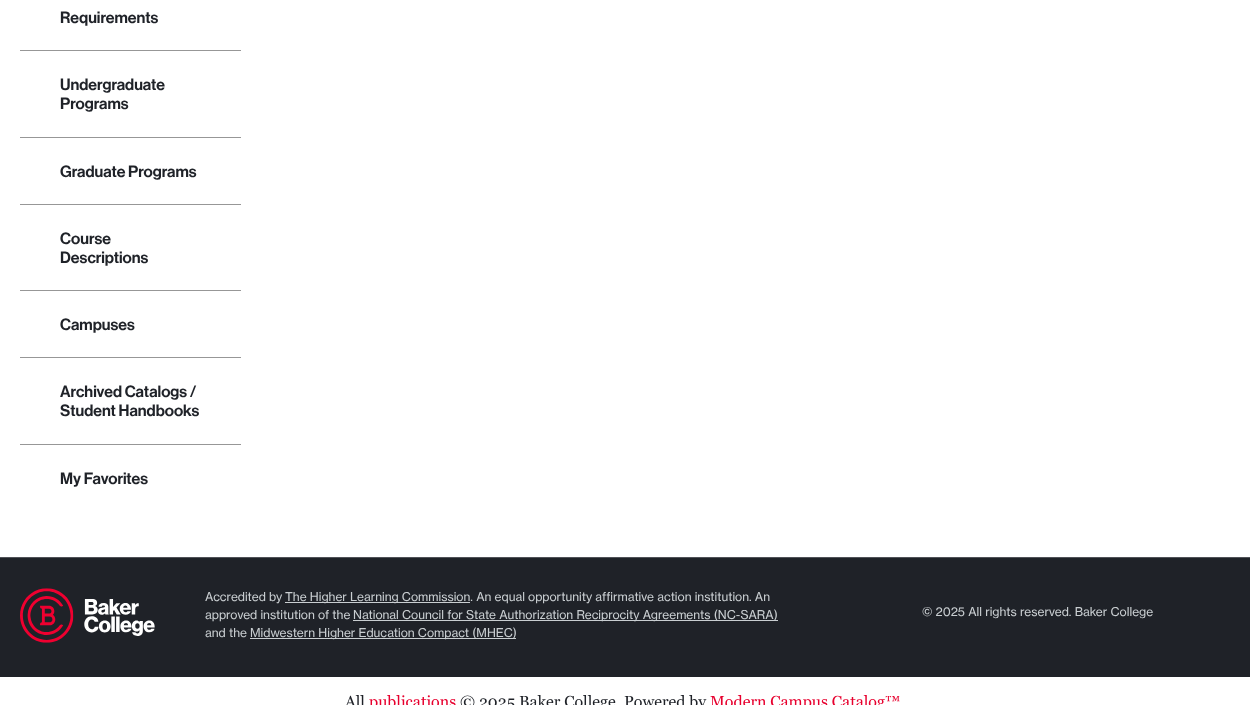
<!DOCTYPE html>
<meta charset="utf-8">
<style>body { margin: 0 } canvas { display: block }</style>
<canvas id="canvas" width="1250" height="705"></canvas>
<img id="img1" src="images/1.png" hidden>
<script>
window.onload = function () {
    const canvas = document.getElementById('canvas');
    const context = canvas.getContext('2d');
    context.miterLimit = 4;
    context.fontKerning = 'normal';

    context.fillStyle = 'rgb(255, 255, 255)';
    context.fillRect(0, 0, 1250, 705);
    context.fillStyle = 'rgb(151, 151, 151)';
    context.fillRect(20, 50, 221, 1);
    context.fillRect(20, 137, 221, 1);
    context.fillRect(20, 204, 221, 1);
    context.fillRect(20, 290, 221, 1);
    context.fillRect(20, 357, 221, 1);
    context.fillRect(20, 444, 221, 1);
    context.fillStyle = 'rgb(31, 34, 40)';
    context.fillRect(0, 558, 1250, 119);
    context.fillStyle = 'rgb(80, 82, 88)';
    context.fillRect(0, 557, 1250, 1);
    context.drawImage(document.getElementById('img1'), 20, 588, 135, 55);
    context.fillStyle = 'rgb(201, 206, 209)';
    context.fillRect(285, 602, 185, 1);
    context.fillRect(353, 620, 425, 1);
    context.fillRect(250, 638, 266, 1);
    context.font = '500 16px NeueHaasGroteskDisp';
    context.fillStyle = 'rgb(31, 34, 40)';
    context.fillText('Requirements', 60, 23);
    context.fillText('Undergraduate', 60, 90);
    context.fillText('Programs', 60, 109);
    context.fillText('Graduate Programs', 60, 177);
    context.fillText('Course', 60, 244);
    context.fillText('Descriptions', 60, 263);
    context.fillText('Campuses', 60, 330);
    context.fillText('Archived Catalogs /', 60, 397);
    context.fillText('Student Handbooks', 60, 416);
    context.fillText('My Favorites', 60, 484);
    context.font = '12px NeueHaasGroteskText';
    context.fillStyle = 'rgb(201, 206, 209)';
    context.fillText('Accredited by', 205, 601);
    context.fillText('The Higher Learning Commission. An equal opportunity affirmative action institution. An', 285, 601);
    context.fillText('approved institution of the', 205, 619);
    context.fillText('National Council for State Authorization Reciprocity Agreements (NC-SARA)', 353, 619);
    context.fillText('and the', 205, 637);
    context.fillText('Midwestern Higher Education Compact (MHEC)', 250, 637);
    context.fillText('© 2025 All rights reserved. Baker College', 922, 616);
    context.font = '16px Georgia';
    context.fillStyle = 'rgb(31, 34, 40)';
    context.fillText('All', 345, 707);
    context.fillStyle = 'rgb(231, 0, 46)';
    context.fillText('publications', 369, 707);
    context.fillStyle = 'rgb(31, 34, 40)';
    context.fillText('© 2025 Baker College', 460, 707);
    context.fillText('Powered by', 624, 707);
    context.fillStyle = 'rgb(231, 0, 46)';
    context.fillText('Modern Campus Catalog™', 710, 707);
};
</script>
